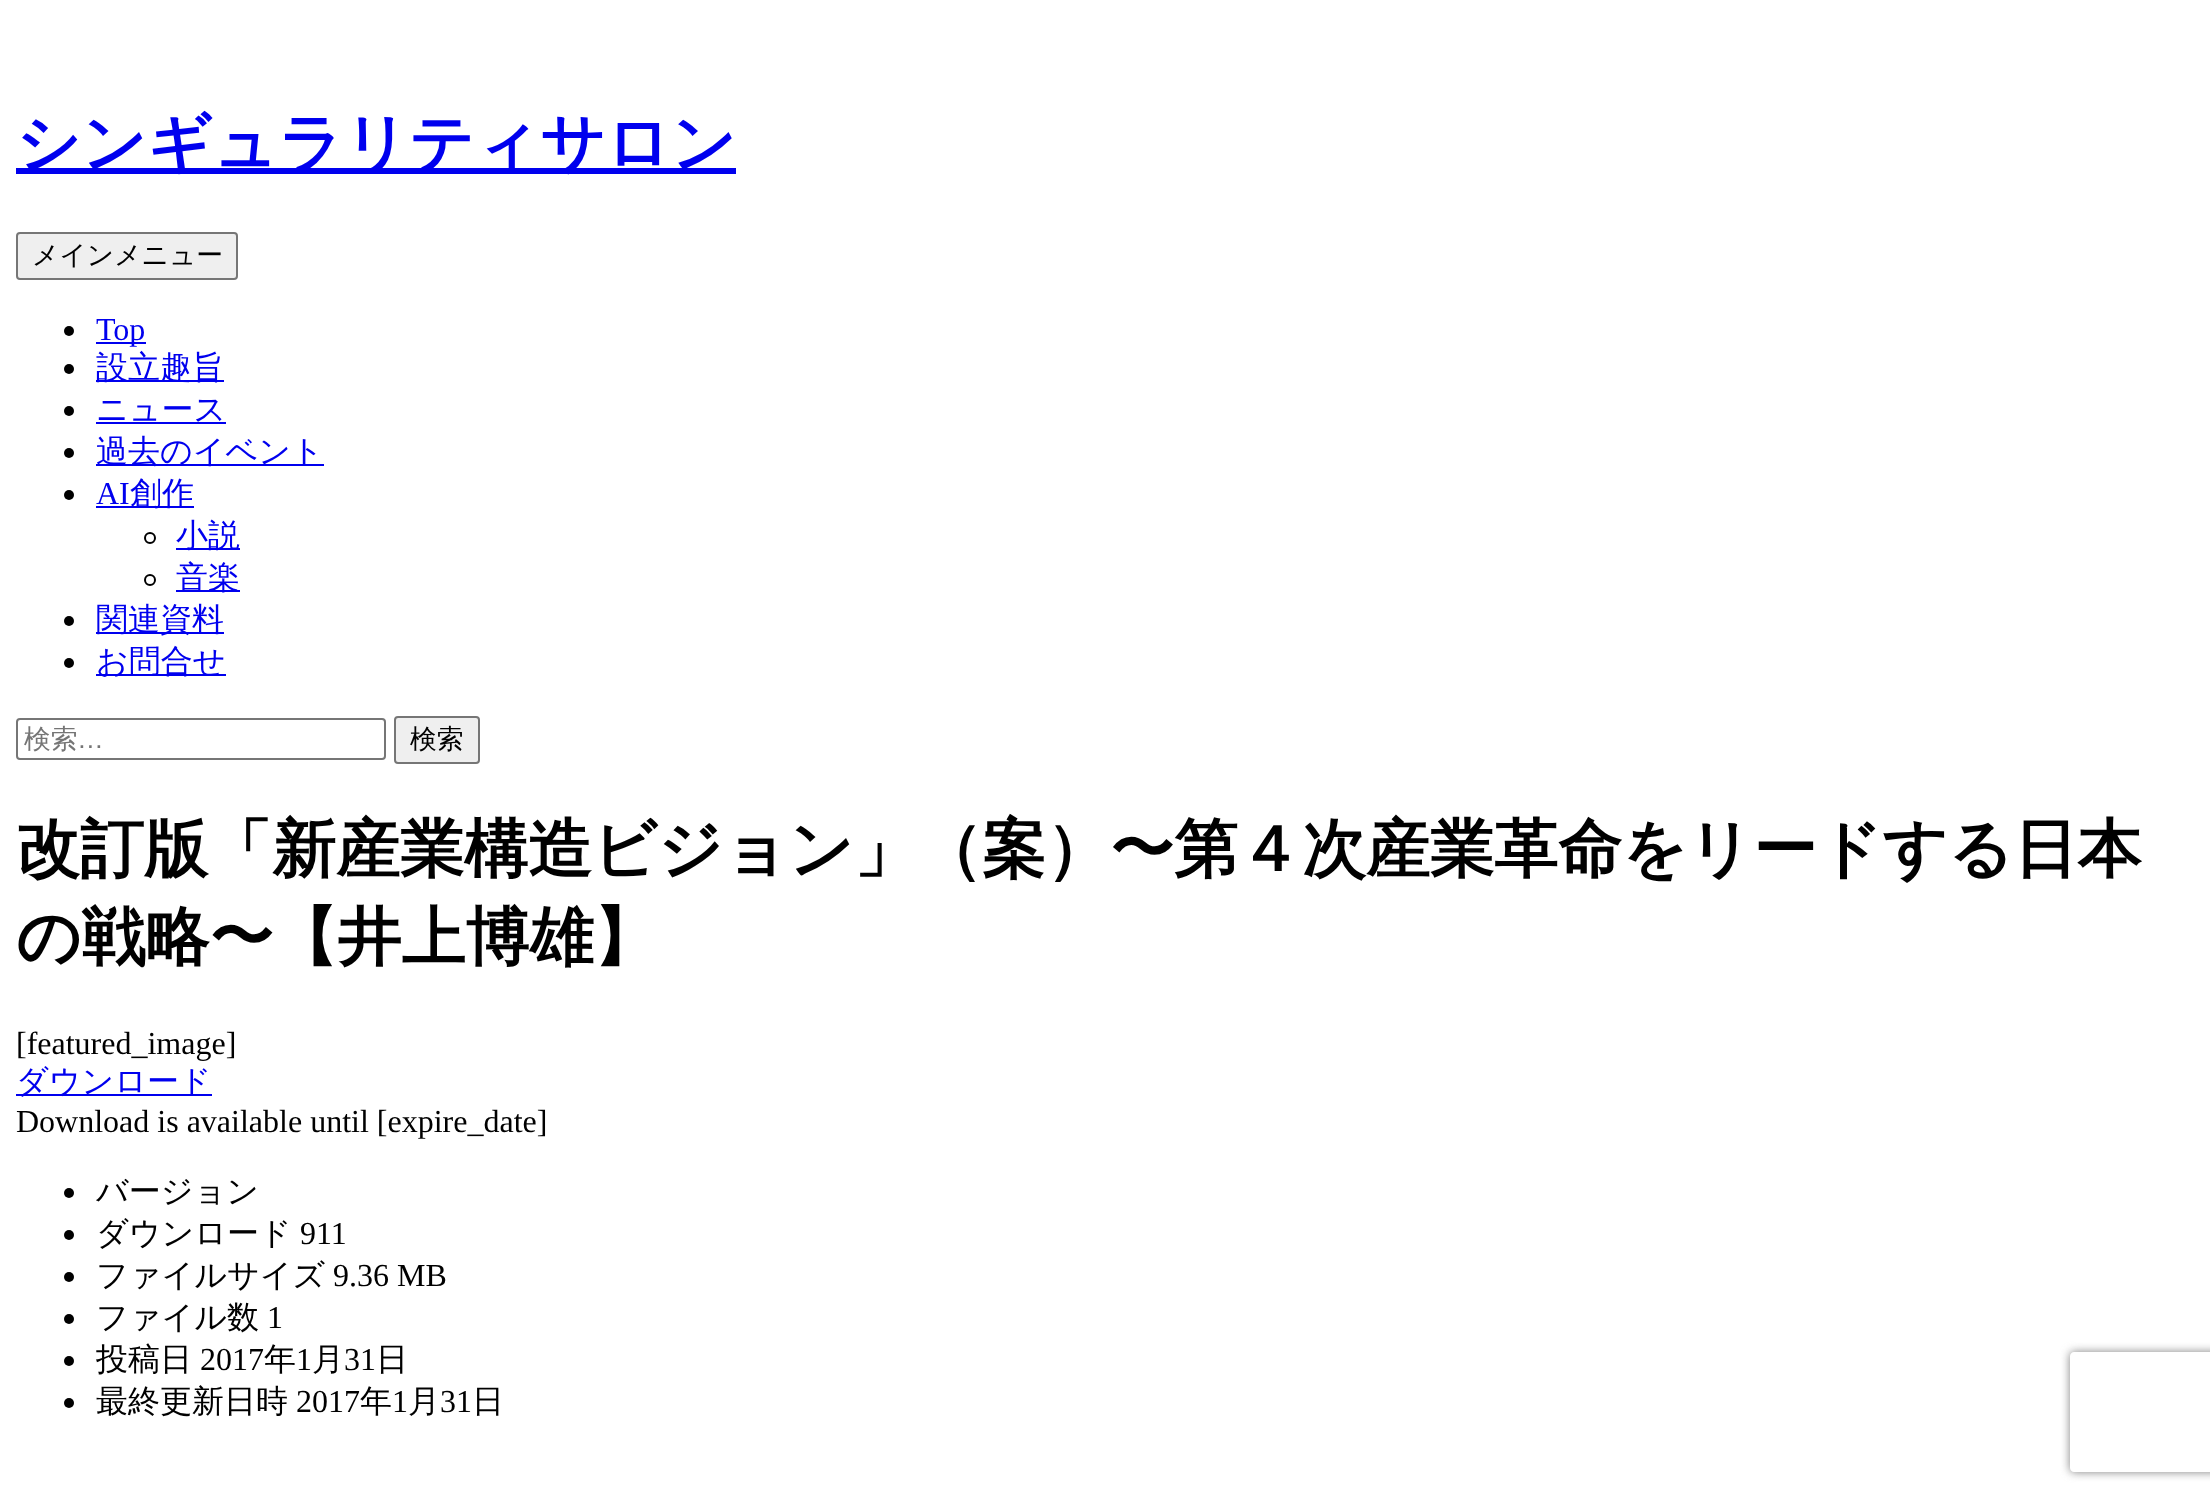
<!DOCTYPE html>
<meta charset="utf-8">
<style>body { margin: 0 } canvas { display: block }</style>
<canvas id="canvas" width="2210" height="1500"></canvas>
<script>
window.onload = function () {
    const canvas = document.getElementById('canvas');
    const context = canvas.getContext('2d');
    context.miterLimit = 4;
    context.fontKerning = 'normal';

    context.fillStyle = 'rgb(255, 255, 255)';
    context.fillRect(0, 0, 2210, 1500);
    context.fillStyle = 'rgb(0, 0, 238)';
    context.fillRect(16, 168, 720, 6);
    context.fillStyle = 'rgb(239, 239, 239)';
    context.beginPath();
    context.roundRect(17, 233, 220, 46, 3);
    context.fill();
    context.strokeStyle = 'rgb(118, 118, 118)';
    context.lineWidth = 2;
    context.stroke();
    context.fillStyle = 'rgb(0, 0, 0)';
    context.beginPath();
    context.arc(69, 331, 5, 0, 2 * Math.PI);
    context.fill();
    context.fillStyle = 'rgb(0, 0, 238)';
    context.fillRect(96, 342, 50, 2);
    context.fillStyle = 'rgb(0, 0, 0)';
    context.beginPath();
    context.arc(69, 369, 5, 0, 2 * Math.PI);
    context.fill();
    context.fillStyle = 'rgb(0, 0, 238)';
    context.fillRect(96, 380, 128, 2);
    context.fillStyle = 'rgb(0, 0, 0)';
    context.beginPath();
    context.arc(69, 411, 5, 0, 2 * Math.PI);
    context.fill();
    context.fillStyle = 'rgb(0, 0, 238)';
    context.fillRect(96, 422, 130, 2);
    context.fillStyle = 'rgb(0, 0, 0)';
    context.beginPath();
    context.arc(69, 453, 5, 0, 2 * Math.PI);
    context.fill();
    context.fillStyle = 'rgb(0, 0, 238)';
    context.fillRect(96, 464, 228, 2);
    context.fillStyle = 'rgb(0, 0, 0)';
    context.beginPath();
    context.arc(69, 495, 5, 0, 2 * Math.PI);
    context.fill();
    context.fillStyle = 'rgb(0, 0, 238)';
    context.fillRect(96, 506, 98, 2);
    context.beginPath();
    context.arc(150, 538, 5, 0, 2 * Math.PI);
    context.strokeStyle = 'rgb(0, 0, 0)';
    context.stroke();
    context.fillRect(176, 548, 64, 2);
    context.beginPath();
    context.arc(150, 580, 5, 0, 2 * Math.PI);
    context.stroke();
    context.fillRect(176, 590, 64, 2);
    context.fillStyle = 'rgb(0, 0, 0)';
    context.beginPath();
    context.arc(69, 621, 5, 0, 2 * Math.PI);
    context.fill();
    context.fillStyle = 'rgb(0, 0, 238)';
    context.fillRect(96, 632, 128, 2);
    context.fillStyle = 'rgb(0, 0, 0)';
    context.beginPath();
    context.arc(69, 663, 5, 0, 2 * Math.PI);
    context.fill();
    context.fillStyle = 'rgb(0, 0, 238)';
    context.fillRect(96, 674, 130, 2);
    context.beginPath();
    context.roundRect(17, 719, 368, 40, 3);
    context.strokeStyle = 'rgb(118, 118, 118)';
    context.stroke();
    context.fillStyle = 'rgb(239, 239, 239)';
    context.beginPath();
    context.roundRect(395, 717, 84, 46, 3);
    context.fill();
    context.stroke();
    context.fillStyle = 'rgb(0, 0, 238)';
    context.fillRect(16, 1094, 196, 2);
    context.fillStyle = 'rgb(0, 0, 0)';
    context.beginPath();
    context.arc(69, 1193, 5, 0, 2 * Math.PI);
    context.fill();
    context.beginPath();
    context.arc(69, 1235, 5, 0, 2 * Math.PI);
    context.fill();
    context.beginPath();
    context.arc(69, 1277, 5, 0, 2 * Math.PI);
    context.fill();
    context.beginPath();
    context.arc(69, 1319, 5, 0, 2 * Math.PI);
    context.fill();
    context.beginPath();
    context.arc(69, 1361, 5, 0, 2 * Math.PI);
    context.fill();
    context.beginPath();
    context.arc(69, 1403, 5, 0, 2 * Math.PI);
    context.fill();
    context.save();
    context.beginPath();
    context.moveTo(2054, 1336);
    context.lineTo(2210, 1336);
    context.lineTo(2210, 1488);
    context.lineTo(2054, 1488);
    context.closePath();
    context.moveTo(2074, 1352);
    context.lineTo(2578, 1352);
    context.bezierCurveTo(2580, 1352, 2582, 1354, 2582, 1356);
    context.lineTo(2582, 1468);
    context.bezierCurveTo(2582, 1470, 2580, 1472, 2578, 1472);
    context.lineTo(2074, 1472);
    context.bezierCurveTo(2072, 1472, 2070, 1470, 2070, 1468);
    context.lineTo(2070, 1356);
    context.bezierCurveTo(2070, 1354, 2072, 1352, 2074, 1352);
    context.closePath();
    context.clip('evenodd');
    context.fillStyle = 'rgb(128, 128, 128)';
    context.filter = 'blur(5px)';
    context.beginPath();
    context.roundRect(2070, 1352, 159, 120, 4);
    context.fill();
    context.filter = 'none';
    context.restore();
    context.font = 'bold 64px WenQuanYi Zen Hei';
    context.fillStyle = 'rgb(0, 0, 238)';
    context.fillText('シンギュラリティサロン', 16, 165);
    context.font = '500 26.75px WenQuanYi Zen Hei';
    context.fillStyle = 'rgb(0, 0, 0)';
    context.fillText('メインメニュー', 32, 264);
    context.font = '32px Liberation Serif';
    context.fillStyle = 'rgb(0, 0, 238)';
    context.fillText('Top', 96, 340);
    context.font = '500 32px WenQuanYi Zen Hei';
    context.fillText('設立趣旨', 96, 378);
    context.fillText('ニュース', 96, 420);
    context.fillText('過去のイベント', 96, 462);
    context.font = '32px Liberation Serif';
    context.fillText('AI', 96, 504);
    context.font = '500 32px WenQuanYi Zen Hei';
    context.fillText('創作', 130, 504);
    context.fillText('小説', 176, 546);
    context.fillText('音楽', 176, 588);
    context.fillText('関連資料', 96, 630);
    context.fillText('お問合せ', 96, 672);
    context.font = '500 26.75px WenQuanYi Zen Hei';
    context.fillStyle = 'rgb(117, 117, 117)';
    context.fillText('検索', 24, 748);
    context.font = '26.75px Liberation Sans';
    context.fillText('…', 77, 748);
    context.font = '500 26.75px WenQuanYi Zen Hei';
    context.fillStyle = 'rgb(0, 0, 0)';
    context.fillText('検索', 410, 748);
    context.font = 'bold 64px WenQuanYi Zen Hei';
    context.fillText('改訂版「新産業構造ビジョン」（案）〜第４次産業革命をリードする日本', 16, 871);
    context.fillText('の戦略〜【井上博雄】', 16, 959);
    context.font = '32px Liberation Serif';
    context.fillText('[featured_image]', 16, 1054);
    context.font = '500 32px WenQuanYi Zen Hei';
    context.fillStyle = 'rgb(0, 0, 238)';
    context.fillText('ダウンロード', 16, 1092);
    context.font = '32px Liberation Serif';
    context.fillStyle = 'rgb(0, 0, 0)';
    context.fillText('Download is available until [expire_date]', 16, 1132);
    context.font = '500 32px WenQuanYi Zen Hei';
    context.fillText('バージョン', 96, 1202);
    context.fillText('ダウンロード', 96, 1244);
    context.font = '32px Liberation Serif';
    context.fillText('911', 300, 1244);
    context.font = '500 32px WenQuanYi Zen Hei';
    context.fillText('ファイルサイズ', 96, 1286);
    context.font = '32px Liberation Serif';
    context.fillText('9.36 MB', 333, 1286);
    context.font = '500 32px WenQuanYi Zen Hei';
    context.fillText('ファイル数', 96, 1328);
    context.font = '32px Liberation Serif';
    context.fillText('1', 267, 1328);
    context.font = '500 32px WenQuanYi Zen Hei';
    context.fillText('投稿日', 96, 1370);
    context.font = '32px Liberation Serif';
    context.fillText('2017', 200, 1370);
    context.font = '500 32px WenQuanYi Zen Hei';
    context.fillText('年', 264, 1370);
    context.font = '32px Liberation Serif';
    context.fillText('1', 296, 1370);
    context.font = '500 32px WenQuanYi Zen Hei';
    context.fillText('月', 312, 1370);
    context.font = '32px Liberation Serif';
    context.fillText('31', 344, 1370);
    context.font = '500 32px WenQuanYi Zen Hei';
    context.fillText('日', 376, 1370);
    context.fillText('最終更新日時', 96, 1412);
    context.font = '32px Liberation Serif';
    context.fillText('2017', 296, 1412);
    context.font = '500 32px WenQuanYi Zen Hei';
    context.fillText('年', 360, 1412);
    context.font = '32px Liberation Serif';
    context.fillText('1', 392, 1412);
    context.font = '500 32px WenQuanYi Zen Hei';
    context.fillText('月', 408, 1412);
    context.font = '32px Liberation Serif';
    context.fillText('31', 440, 1412);
    context.font = '500 32px WenQuanYi Zen Hei';
    context.fillText('日', 472, 1412);
};
</script>
